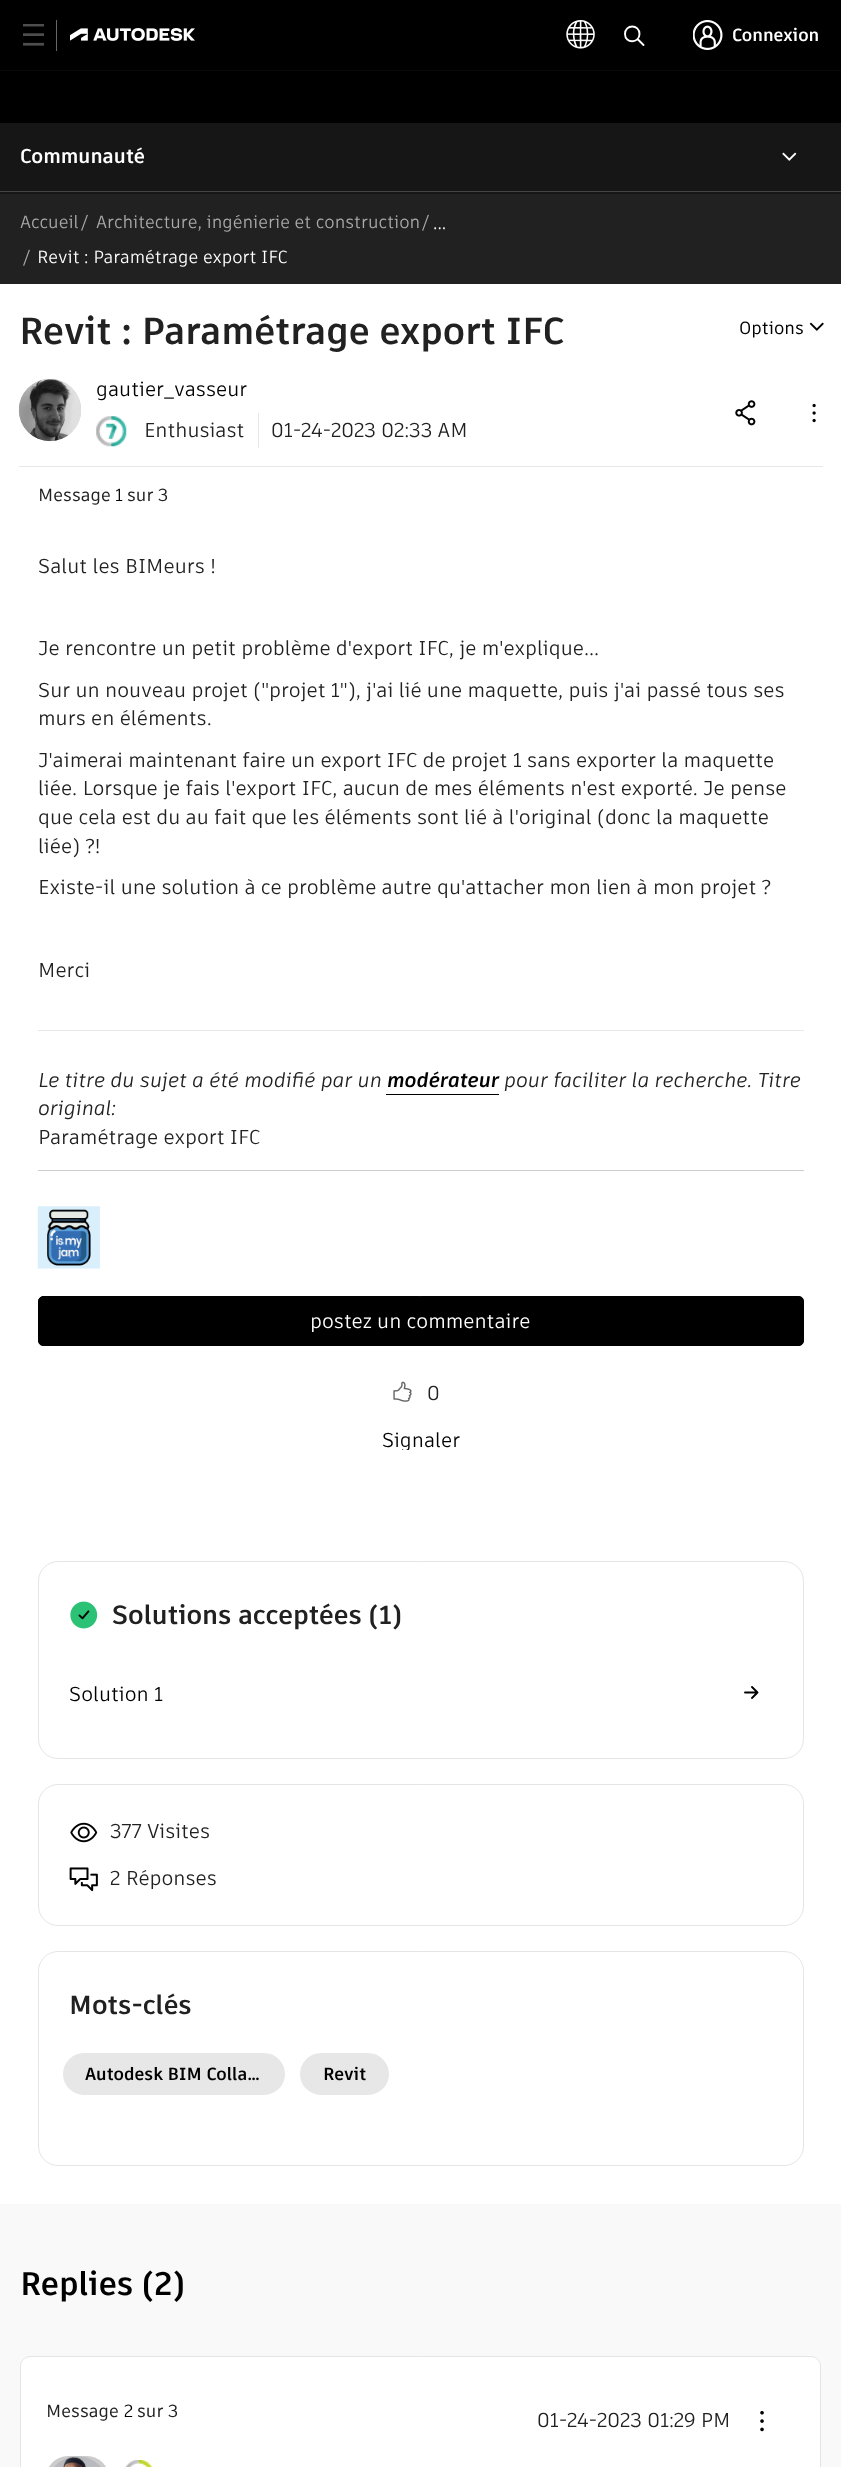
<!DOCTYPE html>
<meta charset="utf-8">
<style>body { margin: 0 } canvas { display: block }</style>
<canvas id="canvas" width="841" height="2467"></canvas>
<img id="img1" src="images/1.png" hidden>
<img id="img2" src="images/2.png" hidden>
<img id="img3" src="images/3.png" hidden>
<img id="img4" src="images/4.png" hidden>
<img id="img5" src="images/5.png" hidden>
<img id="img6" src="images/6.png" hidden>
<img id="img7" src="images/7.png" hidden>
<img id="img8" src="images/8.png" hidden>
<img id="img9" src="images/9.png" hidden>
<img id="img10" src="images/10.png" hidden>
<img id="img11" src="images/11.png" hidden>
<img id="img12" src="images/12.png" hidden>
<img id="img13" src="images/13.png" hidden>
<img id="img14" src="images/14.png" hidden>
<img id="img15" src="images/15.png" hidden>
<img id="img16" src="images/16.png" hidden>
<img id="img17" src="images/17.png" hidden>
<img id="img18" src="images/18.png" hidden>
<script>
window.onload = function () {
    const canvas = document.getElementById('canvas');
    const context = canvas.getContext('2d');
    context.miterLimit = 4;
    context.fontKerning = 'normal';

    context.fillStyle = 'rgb(255, 255, 255)';
    context.fillRect(0, 0, 841, 2467);
    context.fillStyle = 'rgb(0, 0, 0)';
    context.fillRect(0, 0, 841, 123);
    context.fillStyle = 'rgb(10, 10, 10)';
    context.fillRect(0, 70, 841, 1);
    context.drawImage(document.getElementById('img1'), 23, 24, 21, 22);
    context.fillStyle = 'rgb(102, 102, 102)';
    context.fillRect(56, 20, 1, 31);
    context.drawImage(document.getElementById('img2'), 70, 28, 125, 13);
    context.drawImage(document.getElementById('img3'), 566, 20, 29, 29);
    context.beginPath();
    context.moveTo(637.5, 39);
    context.lineTo(643.5, 45);
    context.moveTo(639.5, 34);
    context.bezierCurveTo(639.5, 43.5, 625, 44, 625, 34);
    context.bezierCurveTo(625, 24, 639.5, 24, 639.5, 34);
    context.closePath();
    context.strokeStyle = 'rgb(255, 255, 255)';
    context.lineWidth = 1.9;
    context.lineCap = 'round';
    context.stroke();
    context.drawImage(document.getElementById('img4'), 693, 20, 30, 30);
    context.fillStyle = 'rgb(22, 22, 22)';
    context.fillRect(0, 123, 841, 71);
    context.drawImage(document.getElementById('img5'), 782, 152, 15, 9);
    context.fillStyle = 'rgb(69, 69, 69)';
    context.fillRect(0, 191, 841, 1);
    context.fillStyle = 'rgb(33, 33, 33)';
    context.fillRect(0, 194, 841, 90);
    context.fillStyle = 'rgb(231, 231, 231)';
    context.fillRect(19, 466, 804, 1);
    context.drawImage(document.getElementById('img6'), 809, 322, 15, 9);
    context.fillStyle = 'rgb(204, 204, 204)';
    context.filter = 'blur(0.5px)';
    context.beginPath();
    context.roundRect(19, 379, 62, 62, 31);
    context.fill();
    context.filter = 'none';
    context.drawImage(document.getElementById('img7'), 18, 379, 63, 63);
    context.fillStyle = 'rgb(231, 231, 231)';
    context.fillRect(258, 413, 1, 35);
    context.drawImage(document.getElementById('img8'), 96, 416, 31, 31);
    context.drawImage(document.getElementById('img9'), 735, 400, 21, 26);
    context.drawImage(document.getElementById('img10'), 812, 403, 4, 20);
    context.fillStyle = 'rgb(232, 232, 232)';
    context.fillRect(38, 1030, 766, 1);
    context.fillStyle = 'rgb(0, 0, 0)';
    context.fillRect(386, 1094, 113, 1);
    context.fillStyle = 'rgb(204, 204, 204)';
    context.fillRect(38, 1170, 766, 1);
    context.drawImage(document.getElementById('img11'), 37, 1206, 63, 63);
    context.fillStyle = 'rgb(0, 0, 0)';
    context.beginPath();
    context.roundRect(38.5, 1296.5, 765, 49, 4.5);
    context.fill();
    context.strokeStyle = 'rgb(0, 0, 0)';
    context.lineWidth = 1;
    context.stroke();
    context.drawImage(document.getElementById('img12'), 393, 1381, 19, 21);
    context.beginPath();
    context.roundRect(38.5, 1561.5, 765, 197, 19.5);
    context.strokeStyle = 'rgb(229, 229, 229)';
    context.stroke();
    context.drawImage(document.getElementById('img13'), 70, 1601, 28, 28);
    context.beginPath();
    context.moveTo(752, 1687);
    context.lineTo(757.5, 1692.5);
    context.moveTo(757.5, 1692.5);
    context.lineTo(752, 1698);
    context.moveTo(757.5, 1692.5);
    context.lineTo(745, 1692.5);
    context.strokeStyle = 'rgb(0, 0, 0)';
    context.lineWidth = 1.9;
    context.lineJoin = 'round';
    context.stroke();
    context.beginPath();
    context.roundRect(38.5, 1784.5, 765, 141, 19.5);
    context.strokeStyle = 'rgb(229, 229, 229)';
    context.lineWidth = 1;
    context.lineJoin = 'miter';
    context.stroke();
    context.drawImage(document.getElementById('img14'), 70, 1822, 28, 21);
    context.drawImage(document.getElementById('img15'), 69, 1867, 29, 25);
    context.beginPath();
    context.roundRect(38.5, 1951.5, 765, 214, 19.5);
    context.stroke();
    context.fillStyle = 'rgb(231, 231, 231)';
    context.beginPath();
    context.roundRect(64.5, 2054.5, 219, 39, 19.5);
    context.fill();
    context.strokeStyle = 'rgb(231, 231, 231)';
    context.lineWidth = 3;
    context.stroke();
    context.beginPath();
    context.roundRect(301.5, 2054.5, 86, 39, 19.5);
    context.fill();
    context.stroke();
    context.fillStyle = 'rgb(249, 249, 249)';
    context.fillRect(0, 2204, 841, 263);
    context.fillStyle = 'rgb(255, 255, 255)';
    context.beginPath();
    context.roundRect(20.5, 2356.5, 800, 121, 9.5);
    context.fill();
    context.strokeStyle = 'rgb(229, 229, 229)';
    context.lineWidth = 1;
    context.stroke();
    context.fillStyle = 'rgb(204, 204, 204)';
    context.filter = 'blur(0.5px)';
    context.beginPath();
    context.roundRect(46, 2456, 63, 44, 31.5);
    context.fill();
    context.filter = 'none';
    context.drawImage(document.getElementById('img16'), 54, 2456, 47, 11);
    context.drawImage(document.getElementById('img17'), 125, 2460, 28, 7);
    context.drawImage(document.getElementById('img18'), 760, 2411, 4, 21);
    context.font = 'bold 17.5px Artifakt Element';
    context.fillStyle = 'rgb(255, 255, 255)';
    context.fillText('Connexion', 732, 41);
    context.font = 'bold 20px Artifakt Element';
    context.fillText('Communauté', 20, 163);
    context.font = '17.5px Artifakt Element';
    context.fillStyle = 'rgb(170, 170, 170)';
    context.fillText('Accueil', 20, 228);
    context.fillText('/', 81, 228);
    context.fillText('Architecture, ingénierie et construction', 96, 228);
    context.fillText('/', 422, 228);
    context.fillStyle = 'rgb(255, 255, 255)';
    context.fillText('...', 433, 229);
    context.fillStyle = 'rgb(170, 170, 170)';
    context.fillText('/', 23, 263);
    context.fillStyle = 'rgb(255, 255, 255)';
    context.fillText('Revit : Paramétrage export IFC', 37, 263);
    context.font = 'bold 37.5px Artifakt Element';
    context.fillStyle = 'rgb(33, 33, 33)';
    context.fillText('Revit : Paramétrage export IFC', 19, 344);
    context.font = '500 17.5px Artifakt Element';
    context.fillStyle = 'rgb(0, 0, 0)';
    context.fillText('Options', 739, 334);
    context.font = '20px Artifakt Element';
    context.fillText('gautier_vasseur', 96, 396);
    context.fillStyle = 'rgb(33, 33, 33)';
    context.fillText('Enthusiast', 144, 437);
    context.fillText('01-24-2023 02:33 AM', 271, 437);
    context.font = '500 17.5px Artifakt Element';
    context.fillText('Message', 38, 501);
    context.font = '17.5px Artifakt Element';
    context.fillStyle = 'rgb(0, 0, 0)';
    context.fillText('1', 115, 501);
    context.font = '500 17.5px Artifakt Element';
    context.fillStyle = 'rgb(33, 33, 33)';
    context.fillText('sur 3', 127, 501);
    context.font = '20px Artifakt Element';
    context.fillText('Salut les BIMeurs !', 38, 573);
    context.fillText('Je rencontre un petit problème d\'export IFC, je m\'explique...', 38, 655);
    context.fillText('Sur un nouveau projet ("projet 1"), j\'ai lié une maquette, puis j\'ai passé tous ses', 38, 697);
    context.fillText('murs en éléments.', 38, 725);
    context.fillText('J\'aimerai maintenant faire un export IFC de projet 1 sans exporter la maquette', 38, 767);
    context.fillText('liée. Lorsque je fais l\'export IFC, aucun de mes éléments n\'est exporté. Je pense', 38, 795);
    context.fillText('que cela est du au fait que les éléments sont lié à l\'original (donc la maquette', 38, 824);
    context.fillText('liée) ?!', 38, 853);
    context.fillText('Existe-il une solution à ce problème autre qu\'attacher mon lien à mon projet ?', 38, 894);
    context.fillText('Merci', 38, 977);
    context.font = 'italic 20px Artifakt Element';
    context.fillText('Le titre du sujet a été modifié par un', 38, 1087);
    context.font = 'italic bold 20px Artifakt Element';
    context.fillStyle = 'rgb(0, 0, 0)';
    context.fillText('modérateur', 387, 1087);
    context.font = 'italic 20px Artifakt Element';
    context.fillStyle = 'rgb(33, 33, 33)';
    context.fillText('pour faciliter la recherche. Titre', 504, 1087);
    context.fillText('original:', 38, 1115);
    context.font = '20px Artifakt Element';
    context.fillText('Paramétrage export IFC', 38, 1144);
    context.fillStyle = 'rgb(255, 255, 255)';
    context.fillText('postez un commentaire', 310, 1328);
    context.fillStyle = 'rgb(33, 33, 33)';
    context.fillText('0', 427, 1400);
    context.save();
    context.beginPath();
    context.rect(38, 1358, 766, 92);
    context.clip();
    context.fillStyle = 'rgb(0, 0, 0)';
    context.fillText('Signaler', 382, 1447);
    context.restore();
    context.font = 'bold 26.25px Artifakt Element';
    context.fillText('Solutions acceptées (1)', 112, 1624);
    context.font = '20px Artifakt Element';
    context.fillStyle = 'rgb(0, 0, 0)';
    context.fillText('Solution 1', 69, 1701);
    context.fillStyle = 'rgb(33, 33, 33)';
    context.fillText('377 Visites', 110, 1838);
    context.fillText('2 Réponses', 110, 1885);
    context.font = 'bold 26.25px Artifakt Element';
    context.fillText('Mots-clés', 69, 2014);
    context.font = 'bold 17.5px Artifakt Element';
    context.fillStyle = 'rgb(0, 0, 0)';
    context.fillText('Autodesk BIM Colla…', 85, 2080);
    context.fillText('Revit', 323, 2080);
    context.font = 'bold 32.5px Artifakt Element';
    context.fillText('Replies (2)', 20, 2295);
    context.font = '500 17.5px Artifakt Element';
    context.fillStyle = 'rgb(33, 33, 33)';
    context.fillText('Message', 46, 2417);
    context.font = '17.5px Artifakt Element';
    context.fillStyle = 'rgb(0, 0, 0)';
    context.fillText('2', 124, 2417);
    context.font = '500 17.5px Artifakt Element';
    context.fillStyle = 'rgb(33, 33, 33)';
    context.fillText('sur 3', 137, 2417);
    context.font = '20px Artifakt Element';
    context.fillText('01-24-2023 01:29 PM', 537, 2427);
};
</script>
